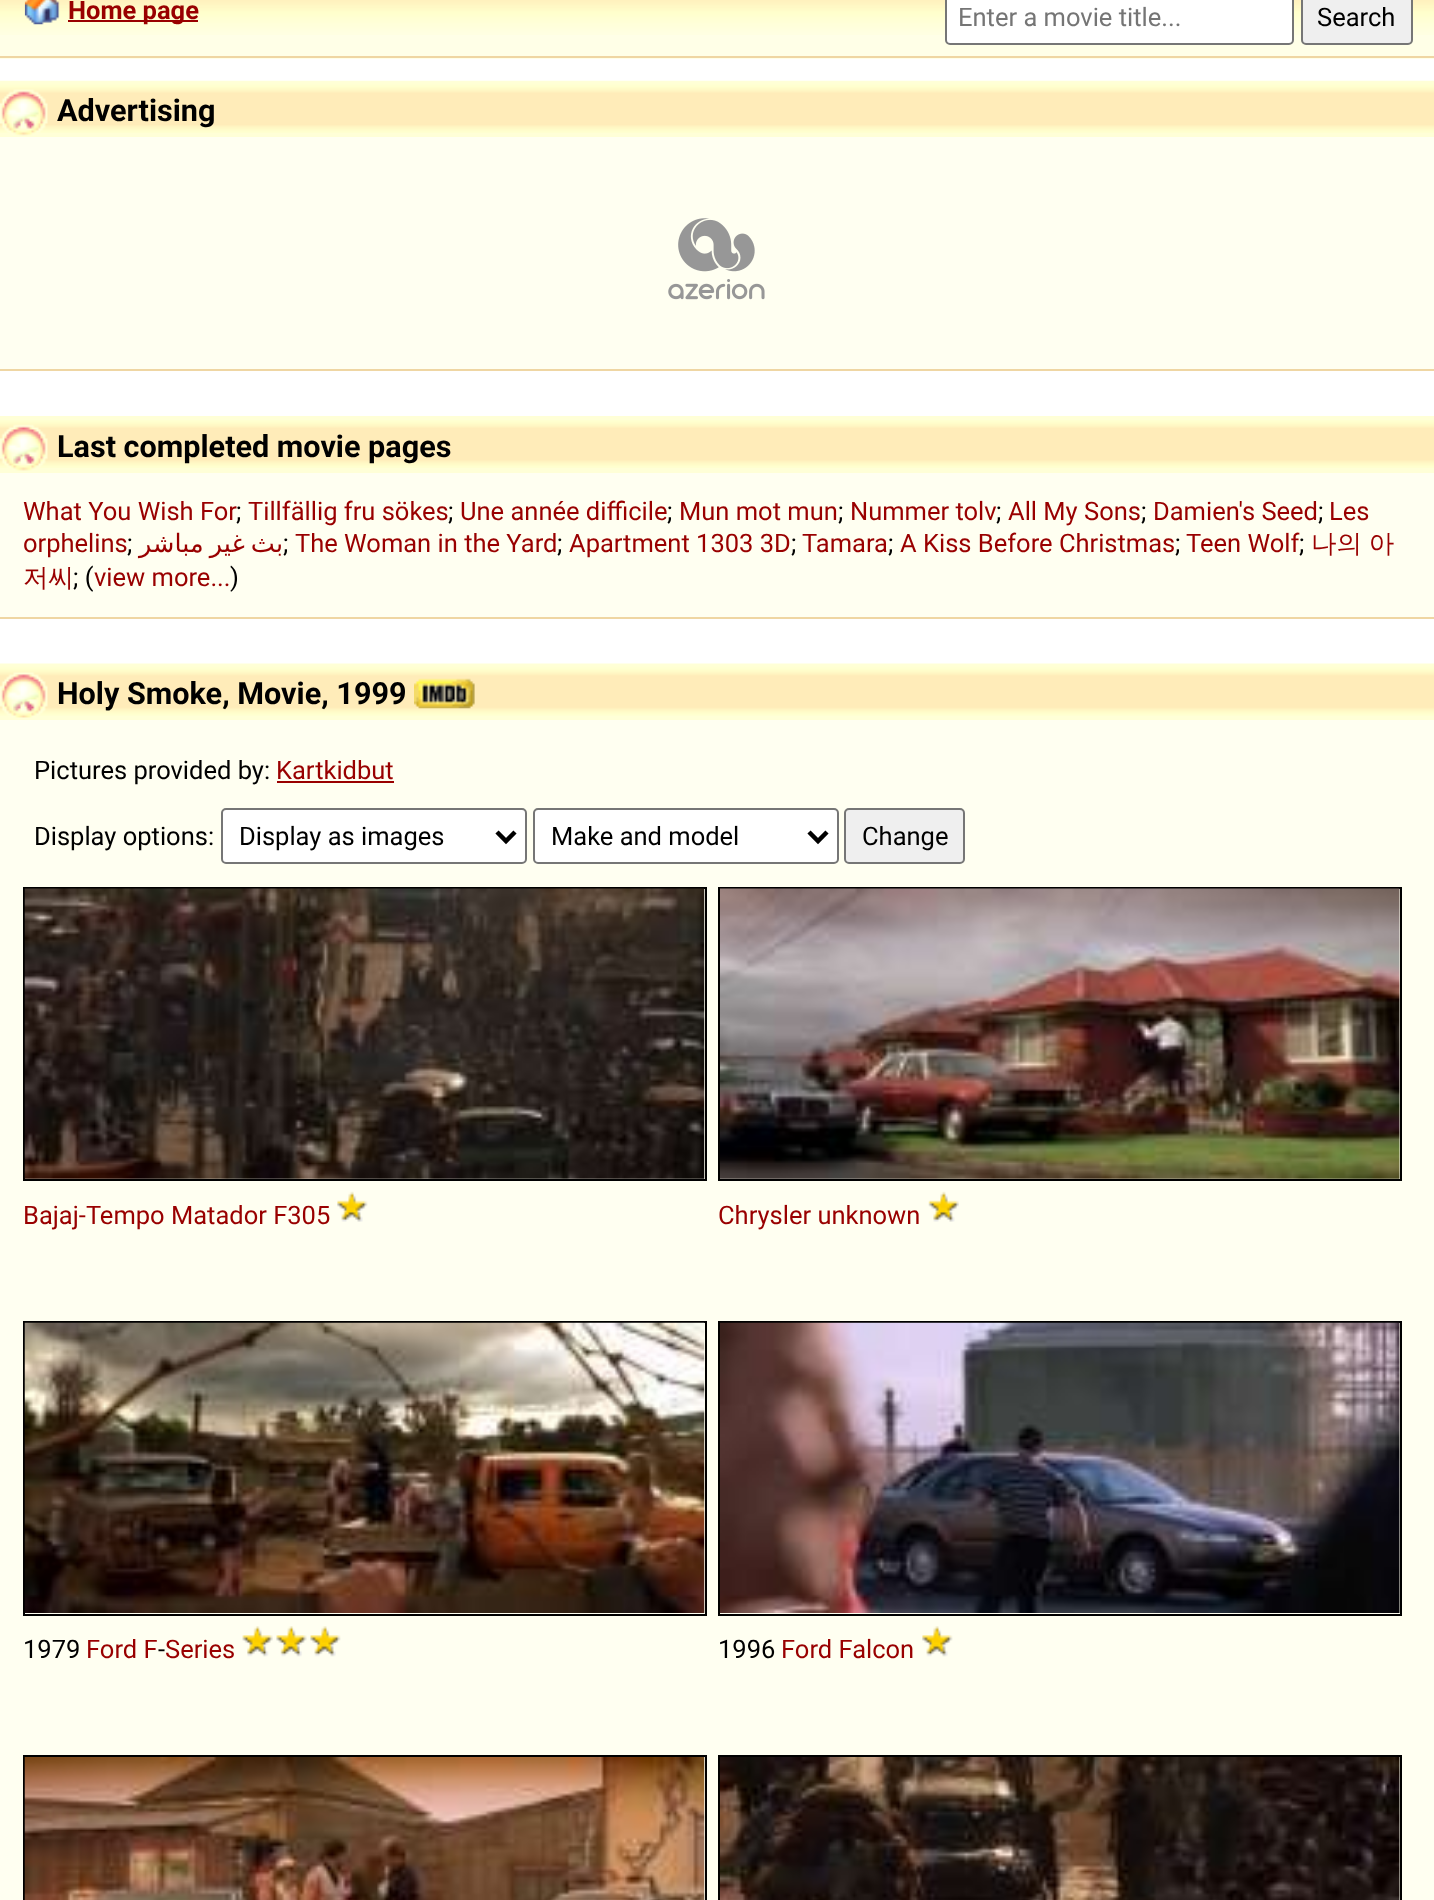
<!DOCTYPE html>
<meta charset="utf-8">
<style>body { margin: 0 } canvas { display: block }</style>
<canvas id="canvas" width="1434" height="1900"></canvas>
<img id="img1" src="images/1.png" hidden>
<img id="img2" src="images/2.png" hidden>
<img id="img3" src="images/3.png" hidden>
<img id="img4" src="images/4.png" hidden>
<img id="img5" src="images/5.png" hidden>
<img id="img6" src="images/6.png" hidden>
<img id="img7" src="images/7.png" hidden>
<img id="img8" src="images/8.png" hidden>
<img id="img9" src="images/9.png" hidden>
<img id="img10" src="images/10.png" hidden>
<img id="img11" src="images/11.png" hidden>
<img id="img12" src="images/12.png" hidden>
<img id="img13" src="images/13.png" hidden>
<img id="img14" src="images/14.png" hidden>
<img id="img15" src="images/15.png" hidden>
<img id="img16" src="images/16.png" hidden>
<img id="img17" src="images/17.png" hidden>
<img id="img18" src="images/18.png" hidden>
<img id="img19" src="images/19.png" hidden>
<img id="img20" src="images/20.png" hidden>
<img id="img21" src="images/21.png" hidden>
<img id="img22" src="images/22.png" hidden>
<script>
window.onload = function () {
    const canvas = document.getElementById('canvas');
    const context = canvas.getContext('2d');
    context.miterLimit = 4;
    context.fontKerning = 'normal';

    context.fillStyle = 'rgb(255, 255, 255)';
    context.fillRect(0, 0, 1434, 1900);
    context.fillStyle = 'rgb(255, 255, 231)';
    context.fillRect(0, 35, 1434, 24);
    context.drawImage(document.getElementById('img1'), 0, 0, 1434, 35);
    context.fillStyle = 'rgb(239, 214, 163)';
    context.fillRect(0, 56, 1434, 2);
    context.drawImage(document.getElementById('img2'), 24, 0, 36, 25);
    context.fillStyle = 'rgb(153, 0, 0)';
    context.fillRect(68, 20, 130, 2);
    context.fillStyle = 'rgb(255, 255, 255)';
    context.beginPath();
    context.roundRect(946, -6, 347, 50, 4);
    context.fill();
    context.strokeStyle = 'rgb(118, 118, 118)';
    context.lineWidth = 2;
    context.stroke();
    context.fillStyle = 'rgb(239, 239, 239)';
    context.beginPath();
    context.roundRect(1302, -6, 110, 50, 4);
    context.fill();
    context.stroke();
    context.fillStyle = 'rgb(255, 255, 241)';
    context.fillRect(0, 137, 1434, 232);
    context.fillStyle = 'rgb(239, 214, 163)';
    context.fillRect(0, 369, 1434, 2);
    context.fillStyle = 'rgb(255, 255, 215)';
    context.fillRect(0, 133, 1434, 4);
    context.drawImage(document.getElementById('img3'), 0, 80, 1434, 53);
    context.drawImage(document.getElementById('img4'), 0, 89, 48, 47);
    context.drawImage(document.getElementById('img5'), 668, 218, 97, 82);
    context.fillStyle = 'rgb(255, 255, 241)';
    context.fillRect(0, 473, 1434, 144);
    context.fillStyle = 'rgb(239, 214, 163)';
    context.fillRect(0, 617, 1434, 2);
    context.fillStyle = 'rgb(255, 255, 215)';
    context.fillRect(0, 416, 1434, 57);
    context.drawImage(document.getElementById('img6'), 0, 420, 1434, 48);
    context.drawImage(document.getElementById('img7'), 0, 424, 48, 47);
    context.fillStyle = 'rgb(255, 255, 241)';
    context.fillRect(0, 720, 1434, 1180);
    context.fillStyle = 'rgb(255, 255, 215)';
    context.fillRect(0, 716, 1434, 4);
    context.drawImage(document.getElementById('img8'), 0, 663, 1434, 53);
    context.drawImage(document.getElementById('img9'), 0, 672, 48, 46);
    context.drawImage(document.getElementById('img10'), 414, 678, 61, 31);
    context.fillStyle = 'rgb(153, 0, 0)';
    context.fillRect(277, 781, 117, 2);
    context.fillStyle = 'rgb(255, 255, 255)';
    context.beginPath();
    context.roundRect(222, 809, 304, 54, 4);
    context.fill();
    context.stroke();
    context.beginPath();
    context.moveTo(497, 832);
    context.lineTo(506, 841);
    context.lineTo(515, 832);
    context.strokeStyle = 'rgb(0, 0, 0)';
    context.lineWidth = 4.5;
    context.stroke();
    context.beginPath();
    context.roundRect(534, 809, 304, 54, 4);
    context.fill();
    context.strokeStyle = 'rgb(118, 118, 118)';
    context.lineWidth = 2;
    context.stroke();
    context.beginPath();
    context.moveTo(809, 832);
    context.lineTo(818, 841);
    context.lineTo(827, 832);
    context.strokeStyle = 'rgb(0, 0, 0)';
    context.lineWidth = 4.5;
    context.stroke();
    context.fillStyle = 'rgb(239, 239, 239)';
    context.beginPath();
    context.roundRect(845, 809, 119, 54, 4);
    context.fill();
    context.strokeStyle = 'rgb(118, 118, 118)';
    context.lineWidth = 2;
    context.stroke();
    context.strokeStyle = 'rgb(0, 0, 0)';
    context.strokeRect(24, 888, 682, 292);
    context.drawImage(document.getElementById('img11'), 24, 888, 681, 291);
    context.drawImage(document.getElementById('img12'), 337, 1191, 31, 31);
    context.strokeRect(719, 888, 682, 292);
    context.drawImage(document.getElementById('img13'), 720, 888, 680, 291);
    context.drawImage(document.getElementById('img14'), 928, 1191, 31, 31);
    context.strokeRect(24, 1322, 682, 293);
    context.drawImage(document.getElementById('img15'), 24, 1322, 681, 291);
    context.drawImage(document.getElementById('img16'), 242, 1626, 31, 31);
    context.drawImage(document.getElementById('img17'), 276, 1626, 31, 31);
    context.drawImage(document.getElementById('img18'), 310, 1626, 31, 31);
    context.strokeRect(719, 1322, 682, 293);
    context.drawImage(document.getElementById('img19'), 720, 1322, 680, 291);
    context.drawImage(document.getElementById('img20'), 922, 1626, 31, 31);
    context.strokeRect(24, 1756, 682, 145);
    context.drawImage(document.getElementById('img21'), 24, 1757, 681, 143);
    context.strokeRect(719, 1756, 682, 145);
    context.drawImage(document.getElementById('img22'), 720, 1757, 680, 143);
    context.font = 'bold 25.5px Roboto';
    context.fillStyle = 'rgb(153, 0, 0)';
    context.fillText('Home page', 68, 19);
    context.font = '25.5px Roboto';
    context.fillStyle = 'rgb(117, 117, 117)';
    context.fillText('Enter a movie title...', 958, 26);
    context.fillStyle = 'rgb(0, 0, 0)';
    context.fillText('Search', 1317, 26);
    context.font = 'bold 30.6px Roboto';
    context.fillText('Advertising', 57, 121);
    context.fillText('Last completed movie pages', 57, 457);
    context.font = '25.5px Roboto';
    context.fillStyle = 'rgb(153, 0, 0)';
    context.fillText('What You Wish For', 23, 520);
    context.fillStyle = 'rgb(0, 0, 0)';
    context.fillText(';', 236, 520);
    context.fillStyle = 'rgb(153, 0, 0)';
    context.fillText('Tillfällig fru sökes', 248, 520);
    context.fillStyle = 'rgb(0, 0, 0)';
    context.fillText(';', 448, 520);
    context.fillStyle = 'rgb(153, 0, 0)';
    context.fillText('Une année difficile', 460, 520);
    context.fillStyle = 'rgb(0, 0, 0)';
    context.fillText(';', 667, 520);
    context.fillStyle = 'rgb(153, 0, 0)';
    context.fillText('Mun mot mun', 679, 520);
    context.fillStyle = 'rgb(0, 0, 0)';
    context.fillText(';', 838, 520);
    context.fillStyle = 'rgb(153, 0, 0)';
    context.fillText('Nummer tolv', 850, 520);
    context.fillStyle = 'rgb(0, 0, 0)';
    context.fillText(';', 996, 520);
    context.fillStyle = 'rgb(153, 0, 0)';
    context.fillText('All My Sons', 1008, 520);
    context.fillStyle = 'rgb(0, 0, 0)';
    context.fillText(';', 1141, 520);
    context.fillStyle = 'rgb(153, 0, 0)';
    context.fillText('Damien\'s Seed', 1153, 520);
    context.fillStyle = 'rgb(0, 0, 0)';
    context.fillText(';', 1318, 520);
    context.fillStyle = 'rgb(153, 0, 0)';
    context.fillText('Les', 1329, 520);
    context.fillText('orphelins', 23, 552);
    context.fillStyle = 'rgb(0, 0, 0)';
    context.fillText(';', 127, 552);
    context.wordSpacing = '-2px';
    context.direction = 'rtl';
    context.font = '25.5px DejaVu Sans';
    context.fillStyle = 'rgb(153, 0, 0)';
    context.fillText('بث غير مباشر', 283, 552);
    context.wordSpacing = '0px';
    context.direction = 'ltr';
    context.font = '25.5px Roboto';
    context.fillStyle = 'rgb(0, 0, 0)';
    context.fillText(';', 283, 552);
    context.fillStyle = 'rgb(153, 0, 0)';
    context.fillText('The Woman in the Yard', 295, 552);
    context.fillStyle = 'rgb(0, 0, 0)';
    context.fillText(';', 557, 552);
    context.fillStyle = 'rgb(153, 0, 0)';
    context.fillText('Apartment 1303 3D', 569, 552);
    context.fillStyle = 'rgb(0, 0, 0)';
    context.fillText(';', 791, 552);
    context.fillStyle = 'rgb(153, 0, 0)';
    context.fillText('Tamara', 802, 552);
    context.fillStyle = 'rgb(0, 0, 0)';
    context.fillText(';', 888, 552);
    context.fillStyle = 'rgb(153, 0, 0)';
    context.fillText('A Kiss Before Christmas', 900, 552);
    context.fillStyle = 'rgb(0, 0, 0)';
    context.fillText(';', 1175, 552);
    context.fillStyle = 'rgb(153, 0, 0)';
    context.fillText('Teen Wolf', 1186, 552);
    context.fillStyle = 'rgb(0, 0, 0)';
    context.fillText(';', 1299, 552);
    context.wordSpacing = '-1px';
    context.font = '500 25.5px WenQuanYi Zen Hei';
    context.fillStyle = 'rgb(153, 0, 0)';
    context.fillText('나의 아', 1311, 552);
    context.wordSpacing = '0px';
    context.fillText('저씨', 23, 586);
    context.font = '25.5px Roboto';
    context.fillStyle = 'rgb(0, 0, 0)';
    context.fillText('; (', 73, 586);
    context.fillStyle = 'rgb(153, 0, 0)';
    context.fillText('view more...', 94, 586);
    context.fillStyle = 'rgb(0, 0, 0)';
    context.fillText(')', 230, 586);
    context.font = 'bold 30.6px Roboto';
    context.fillText('Holy Smoke, Movie, 1999', 57, 704);
    context.font = '25.5px Roboto';
    context.fillText('Pictures provided by:', 34, 779);
    context.fillStyle = 'rgb(153, 0, 0)';
    context.fillText('Kartkidbut', 276, 779);
    context.fillStyle = 'rgb(0, 0, 0)';
    context.fillText('Display options:', 34, 845);
    context.fillText('Display as images', 239, 845);
    context.fillText('Make and model', 551, 845);
    context.fillText('Change', 862, 845);
    context.fillStyle = 'rgb(153, 0, 0)';
    context.fillText('Bajaj-Tempo Matador F305', 23, 1224);
    context.fillText('Chrysler unknown', 718, 1224);
    context.fillStyle = 'rgb(0, 0, 0)';
    context.fillText('1979', 23, 1658);
    context.fillStyle = 'rgb(153, 0, 0)';
    context.fillText('Ford F', 86, 1658);
    context.fillStyle = 'rgb(0, 0, 0)';
    context.fillText('-', 158, 1658);
    context.fillStyle = 'rgb(153, 0, 0)';
    context.fillText('Series', 165, 1658);
    context.fillStyle = 'rgb(0, 0, 0)';
    context.fillText('1996', 718, 1658);
    context.fillStyle = 'rgb(153, 0, 0)';
    context.fillText('Ford Falcon', 781, 1658);
};
</script>
